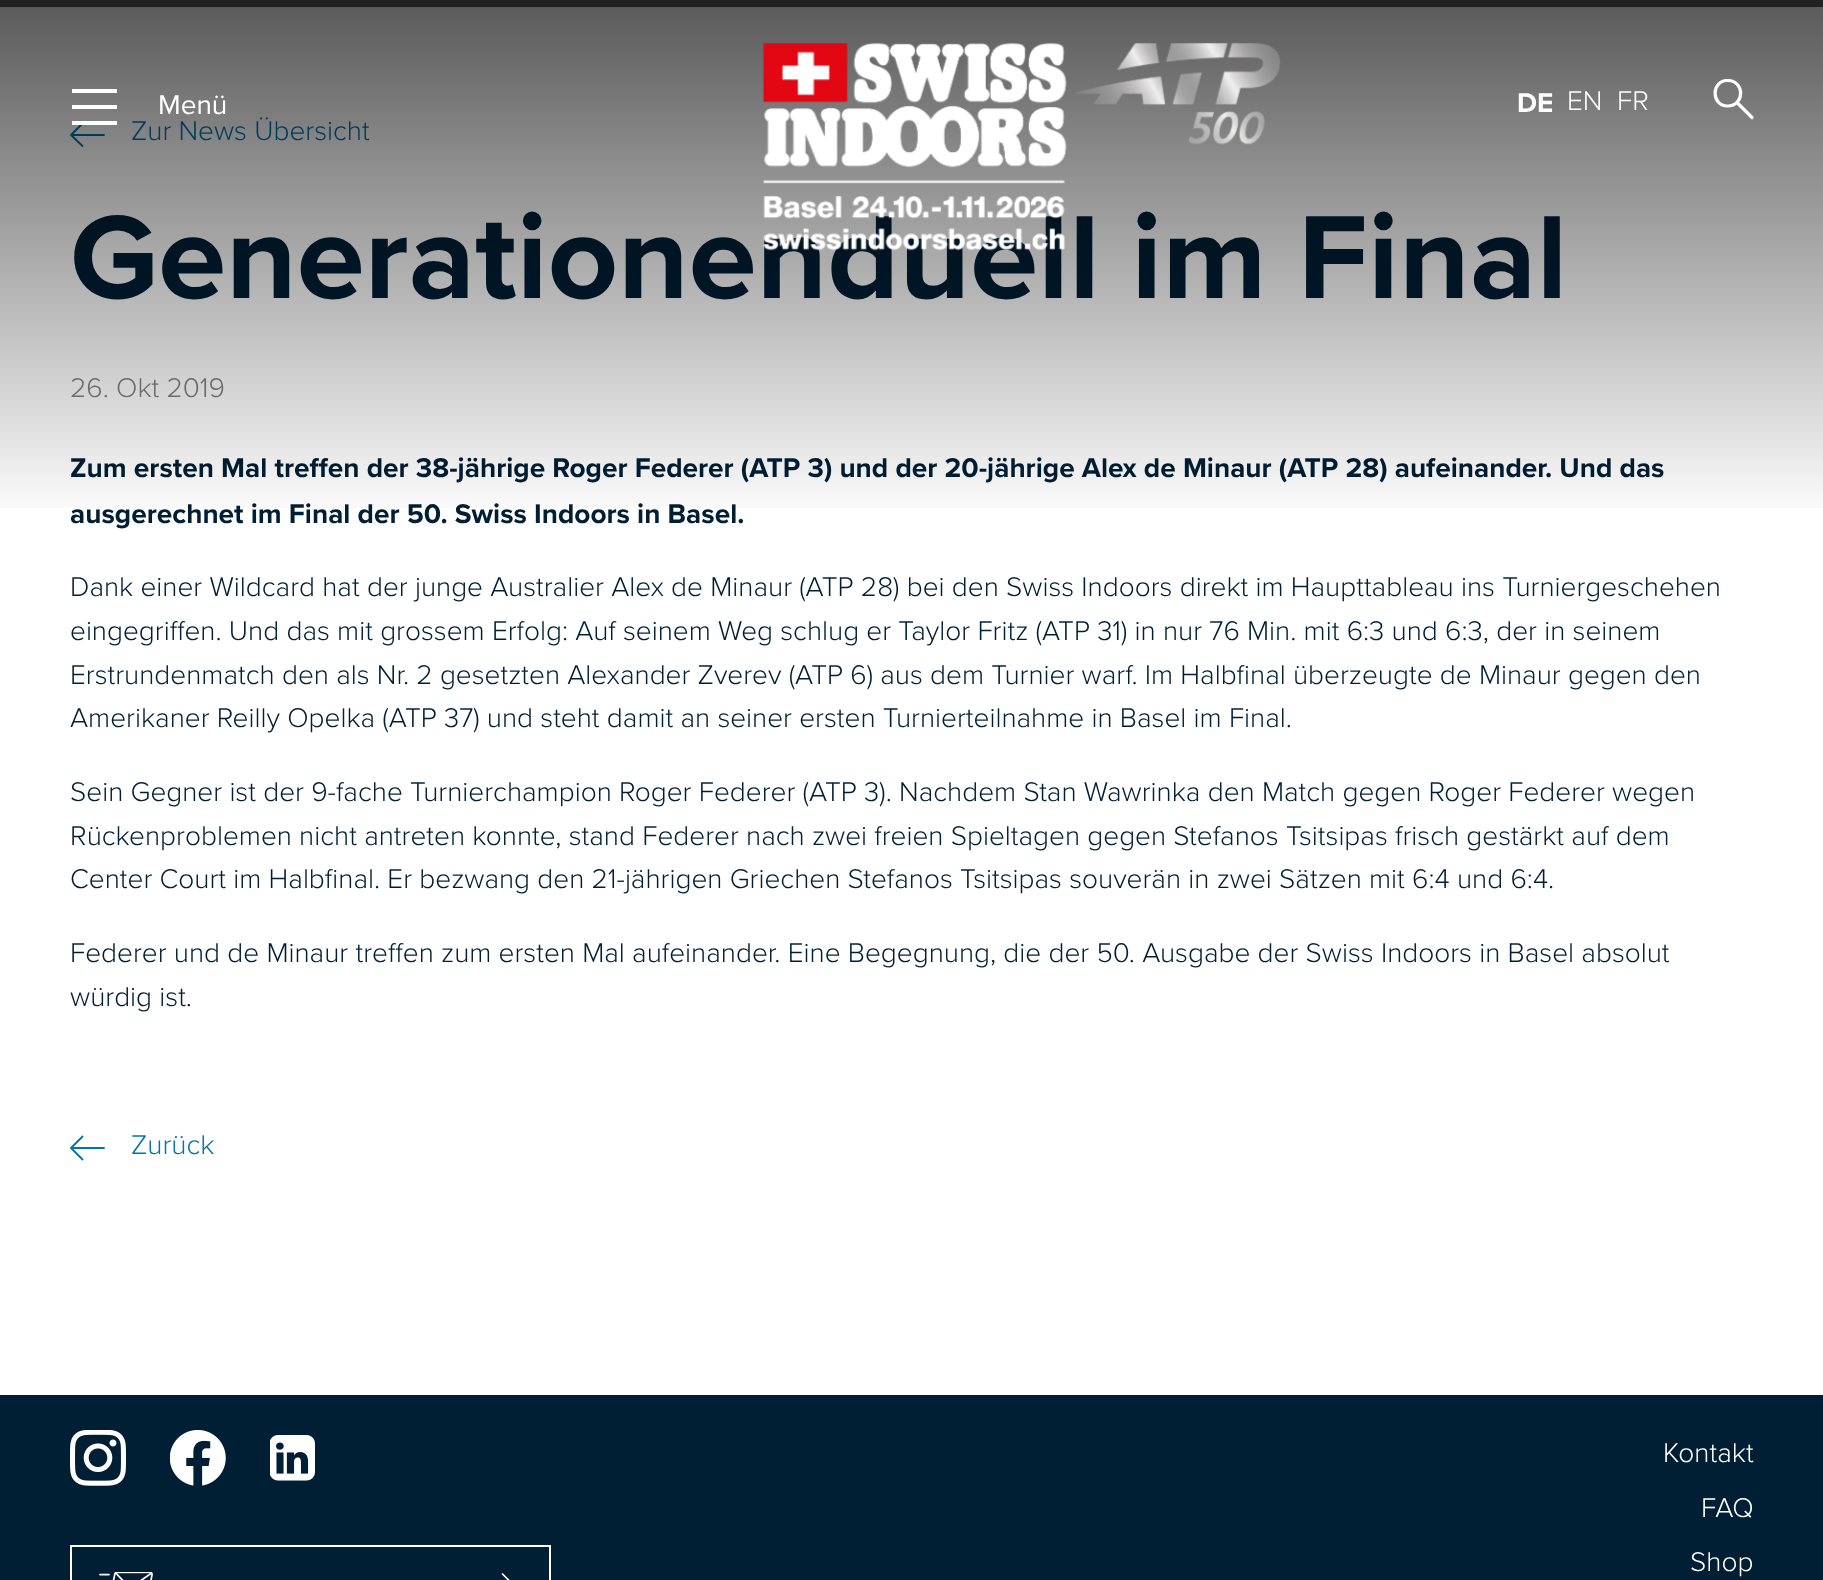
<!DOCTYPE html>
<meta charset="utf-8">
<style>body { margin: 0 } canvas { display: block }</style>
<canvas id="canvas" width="1823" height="1580"></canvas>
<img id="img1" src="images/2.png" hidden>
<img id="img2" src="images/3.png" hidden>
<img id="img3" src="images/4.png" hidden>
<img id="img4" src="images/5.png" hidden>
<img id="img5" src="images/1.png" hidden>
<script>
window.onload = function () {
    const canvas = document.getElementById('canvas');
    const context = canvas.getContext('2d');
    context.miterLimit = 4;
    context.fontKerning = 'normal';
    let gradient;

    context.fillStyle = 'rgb(255, 255, 255)';
    context.fillRect(0, 0, 1823, 1580);
    gradient = context.createLinearGradient(912, 7, 912, -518);
    gradient.addColorStop(0, 'rgb(32, 32, 32)');
    gradient.addColorStop(1, 'rgb(90, 90, 90)');
    context.fillStyle = gradient;
    context.fillRect(0, 0, 1823, 7);
    context.beginPath();
    context.moveTo(104, 135);
    context.lineTo(71, 135);
    context.moveTo(82.5, 123.5);
    context.lineTo(71, 135);
    context.lineTo(82.5, 146);
    context.strokeStyle = 'rgb(0, 116, 175)';
    context.lineWidth = 1.8;
    context.lineCap = 'round';
    context.lineJoin = 'round';
    context.stroke();
    context.beginPath();
    context.moveTo(104, 1148);
    context.lineTo(71, 1148);
    context.moveTo(82.5, 1136.5);
    context.lineTo(71, 1148);
    context.lineTo(82.5, 1159.5);
    context.stroke();
    context.fillStyle = 'rgb(0, 30, 52)';
    context.fillRect(0, 1395, 1823, 185);
    context.drawImage(document.getElementById('img1'), 70, 1430, 56, 56);
    context.drawImage(document.getElementById('img2'), 170, 1430, 56, 56);
    context.drawImage(document.getElementById('img3'), 270, 1435, 45, 46);
    context.drawImage(document.getElementById('img4'), 99, 1572, 54, 8);
    context.strokeStyle = 'rgb(255, 255, 255)';
    context.lineWidth = 2;
    context.lineJoin = 'miter';
    context.strokeRect(71, 1546, 479, 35);
    context.beginPath();
    context.moveTo(502.5, 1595.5);
    context.lineTo(513.5, 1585);
    context.lineTo(502.5, 1574);
    context.lineWidth = 1.7;
    context.lineJoin = 'round';
    context.stroke();
    context.font = '28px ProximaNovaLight';
    context.fillStyle = 'rgb(0, 116, 175)';
    context.fillText('Zur News Übersicht', 131, 140);
    context.font = '122.5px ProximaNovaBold';
    context.fillStyle = 'rgb(0, 30, 52)';
    context.fillText('Generationenduell im Final', 70, 298);
    context.font = '28px ProximaNovaLight';
    context.fillStyle = 'rgb(128, 128, 128)';
    context.fillText('26. Okt 2019', 70, 397);
    context.font = '28px ProximaNovaBold';
    context.fillStyle = 'rgb(0, 30, 52)';
    context.fillText('Zum ersten Mal treffen der 38-jährige Roger Federer (ATP 3) und der 20-jährige Alex de Minaur (ATP 28) aufeinander. Und das', 70, 477);
    context.fillText('ausgerechnet im Final der 50. Swiss Indoors in Basel.', 70, 523);
    gradient = context.createLinearGradient(912, 0, 912, 525);
    gradient.addColorStop(0, 'rgba(0, 0, 0, 0.65)');
    gradient.addColorStop(1, 'rgba(0, 0, 0, 0)');
    context.fillStyle = gradient;
    context.fillRect(0, 7, 1823, 501);
    context.fillStyle = 'rgb(255, 255, 255)';
    context.fillRect(72, 121, 45, 4);
    context.fillRect(72, 105, 45, 4);
    context.fillRect(72, 89, 45, 4);
    context.font = '28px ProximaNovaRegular';
    context.fillText('Menü', 158, 114);
    context.save();
    context.beginPath();
    context.rect(1713, 79, 41, 40);
    context.clip();
    context.beginPath();
    context.moveTo(1727.5, 106);
    context.bezierCurveTo(1745, 106, 1745, 80.5, 1727.5, 80.5);
    context.bezierCurveTo(1711, 80.5, 1711, 106, 1727.5, 106);
    context.closePath();
    context.lineWidth = 3.2;
    context.stroke();
    context.restore();
    context.beginPath();
    context.moveTo(1737, 102.5);
    context.lineTo(1752, 117.5);
    context.lineWidth = 3.2;
    context.stroke();
    context.font = '28px ProximaNovaLight';
    context.fillText('FR', 1617, 110);
    context.fillText('EN', 1567, 110);
    context.font = '28px ProximaNovaBold';
    context.fillText('DE', 1517, 112);
    context.drawImage(document.getElementById('img5'), 762, 42, 519, 209);
    context.font = '28px ProximaNovaLight';
    context.fillStyle = 'rgb(0, 30, 52)';
    context.fillText('Dank einer Wildcard hat der junge Australier Alex de Minaur (ATP 28) bei den Swiss Indoors direkt im Haupttableau ins Turniergeschehen', 70, 596);
    context.fillText('eingegriffen. Und das mit grossem Erfolg: Auf seinem Weg schlug er Taylor Fritz (ATP 31) in nur 76 Min. mit 6:3 und 6:3, der in seinem', 70, 640);
    context.fillText('Erstrundenmatch den als Nr. 2 gesetzten Alexander Zverev (ATP 6) aus dem Turnier warf. Im Halbfinal überzeugte de Minaur gegen den', 70, 684);
    context.fillText('Amerikaner Reilly Opelka (ATP 37) und steht damit an seiner ersten Turnierteilnahme in Basel im Final.', 70, 727);
    context.fillText('Sein Gegner ist der 9-fache Turnierchampion Roger Federer (ATP 3). Nachdem Stan Wawrinka den Match gegen Roger Federer wegen', 70, 801);
    context.fillText('Rückenproblemen nicht antreten konnte, stand Federer nach zwei freien Spieltagen gegen Stefanos Tsitsipas frisch gestärkt auf dem', 70, 845);
    context.fillText('Center Court im Halbfinal. Er bezwang den 21-jährigen Griechen Stefanos Tsitsipas souverän in zwei Sätzen mit 6:4 und 6:4.', 70, 888);
    context.fillText('Federer und de Minaur treffen zum ersten Mal aufeinander. Eine Begegnung, die der 50. Ausgabe der Swiss Indoors in Basel absolut', 70, 962);
    context.fillText('würdig ist.', 70, 1006);
    context.fillStyle = 'rgb(0, 116, 175)';
    context.fillText('Zurück', 131, 1154);
    context.fillStyle = 'rgb(255, 255, 255)';
    context.fillText('Kontakt', 1663, 1462);
    context.fillText('FAQ', 1701, 1517);
    context.fillText('Shop', 1690, 1571);
};
</script>
